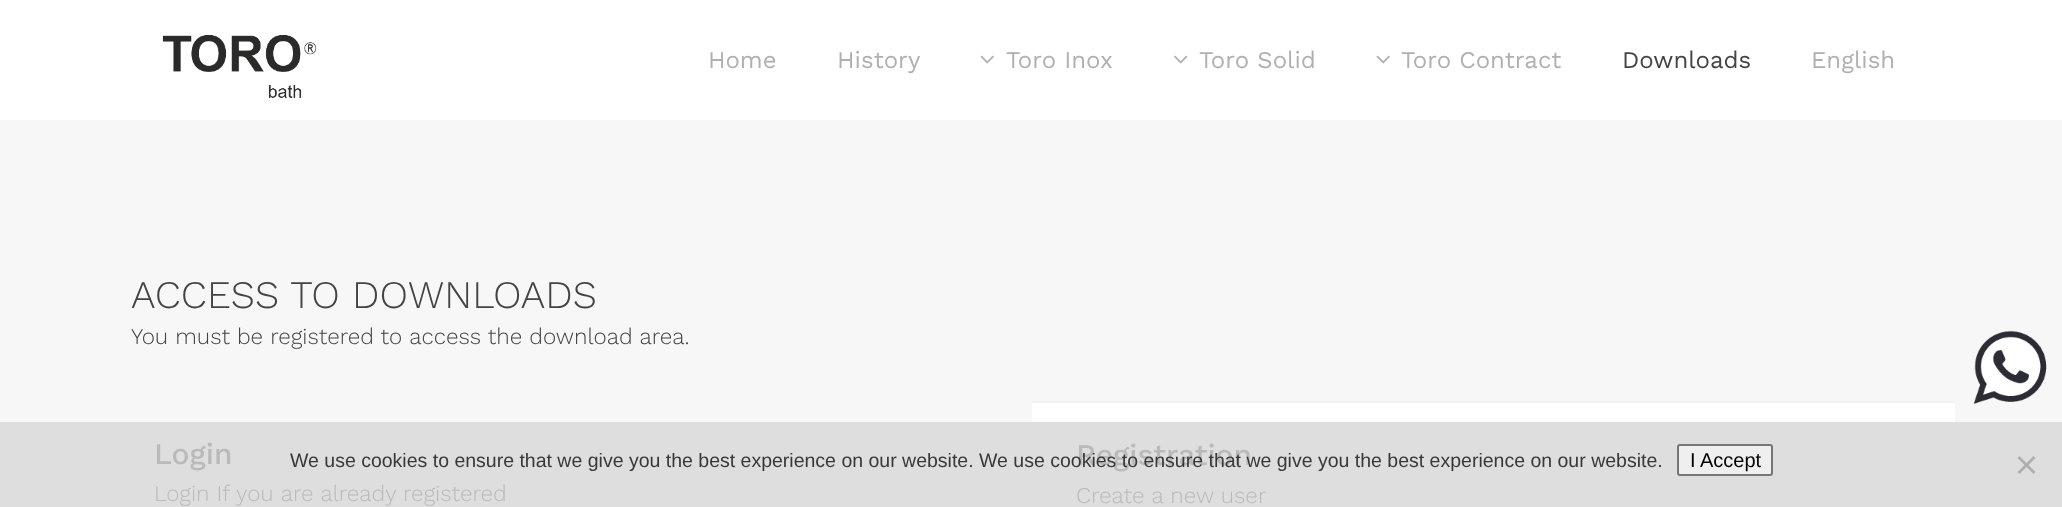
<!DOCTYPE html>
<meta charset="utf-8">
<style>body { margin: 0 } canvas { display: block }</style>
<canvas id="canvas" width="2062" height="507"></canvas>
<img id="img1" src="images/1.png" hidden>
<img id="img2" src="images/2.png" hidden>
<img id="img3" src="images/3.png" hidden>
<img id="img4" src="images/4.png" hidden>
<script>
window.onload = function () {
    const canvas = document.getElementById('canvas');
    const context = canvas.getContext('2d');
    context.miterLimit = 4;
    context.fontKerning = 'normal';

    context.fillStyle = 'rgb(255, 255, 255)';
    context.fillRect(0, 0, 2062, 507);
    context.drawImage(document.getElementById('img1'), 162, 35, 155, 63);
    context.drawImage(document.getElementById('img2'), 980, 55, 14, 9);
    context.drawImage(document.getElementById('img3'), 1174, 55, 14, 9);
    context.drawImage(document.getElementById('img2'), 1376, 55, 14, 9);
    context.fillStyle = 'rgb(247, 247, 247)';
    context.fillRect(0, 120, 2062, 302);
    context.fillStyle = 'rgb(222, 222, 222)';
    context.fillRect(0, 422, 2062, 85);
    context.fillStyle = 'rgb(255, 255, 255)';
    context.fillRect(1032, 403, 923, 19);
    context.fillStyle = 'rgb(242, 242, 242)';
    context.fillRect(1032, 401, 923, 2);
    context.drawImage(document.getElementById('img4'), 1973, 330, 74, 74);
    context.fillStyle = 'rgb(239, 239, 239)';
    context.beginPath();
    context.roundRect(1678, 445, 94, 30, 2);
    context.fill();
    context.strokeStyle = 'rgb(118, 118, 118)';
    context.lineWidth = 2;
    context.stroke();
    context.fillStyle = 'rgb(175, 175, 175)';
    context.beginPath();
    context.moveTo(2033.5, 456);
    context.lineTo(2035.5, 458);
    context.lineTo(2019.5, 474);
    context.lineTo(2017.5, 472);
    context.closePath();
    context.fill();
    context.beginPath();
    context.moveTo(2017.5, 458);
    context.lineTo(2019.5, 456);
    context.lineTo(2035.5, 472);
    context.lineTo(2033.5, 474);
    context.closePath();
    context.fill();
    context.font = '24px Work Sans';
    context.fillStyle = 'rgb(176, 176, 176)';
    context.fillText('Home', 708, 68);
    context.fillText('History', 837, 68);
    context.fillText('Toro Inox', 1006, 68);
    context.fillText('Toro Solid', 1199, 68);
    context.fillText('Toro Contract', 1401, 68);
    context.fillStyle = 'rgb(68, 68, 68)';
    context.fillText('Downloads', 1622, 68);
    context.fillStyle = 'rgb(176, 176, 176)';
    context.fillText('English', 1811, 68);
    context.font = '300 39px Work Sans';
    context.fillStyle = 'rgb(68, 68, 68)';
    context.fillText('ACCESS TO DOWNLOADS', 131, 308);
    context.font = '300 22.5px Work Sans';
    context.fillText('You must be registered to access the download area.', 131, 344);
    context.font = '500 30px Work Sans';
    context.fillStyle = 'rgb(186, 186, 186)';
    context.fillText('Login', 154, 464);
    context.font = '300 22.5px Work Sans';
    context.fillText('Login If you are already registered', 154, 501);
    context.font = '500 30px Work Sans';
    context.fillText('Registration', 1076, 465);
    context.font = '300 22.5px Work Sans';
    context.fillText('Create a new user', 1076, 503);
    context.font = '19.5px Liberation Sans';
    context.fillStyle = 'rgb(56, 56, 56)';
    context.fillText('We use cookies to ensure that we give you the best experience on our website. We use cookies to ensure that we give you the best experience on our website.', 290, 467);
    context.font = '20px Liberation Sans';
    context.fillStyle = 'rgb(0, 0, 0)';
    context.fillText('I Accept', 1690, 467);
};
</script>
